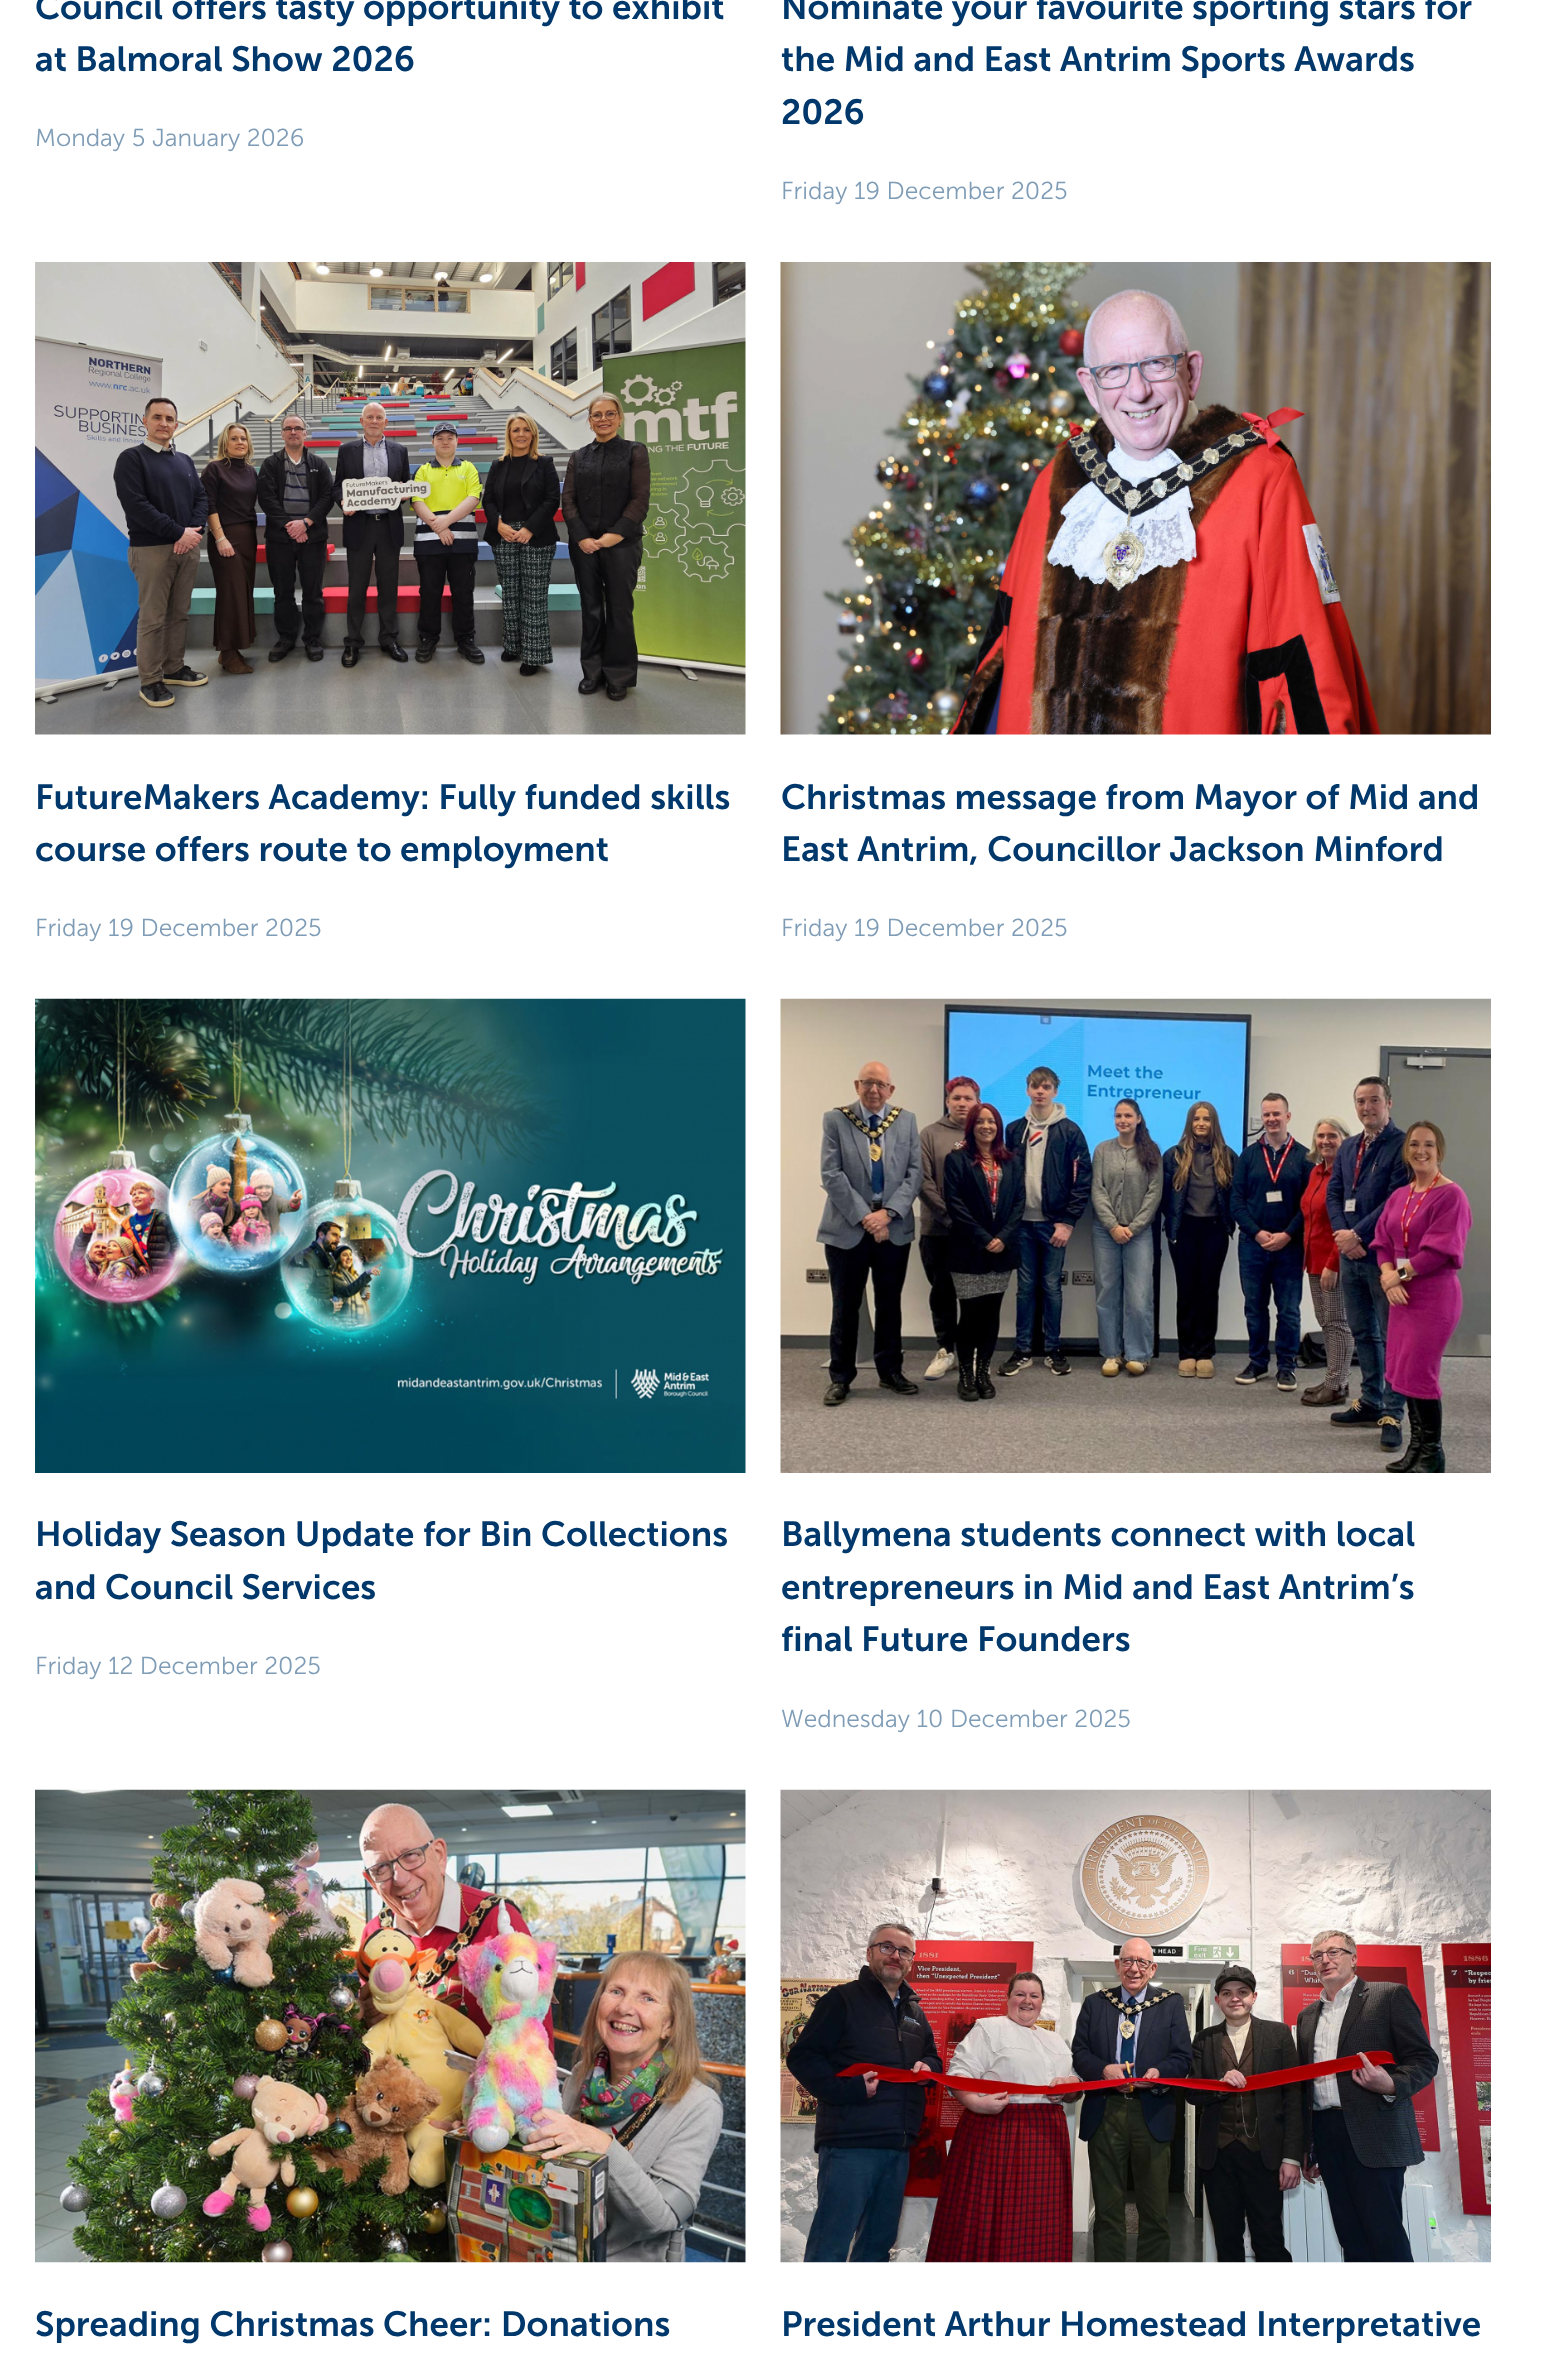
<!DOCTYPE html>
<meta charset="utf-8">
<style>body { margin: 0 } canvas { display: block }</style>
<canvas id="canvas" width="1561" height="2369"></canvas>
<img id="img1" src="images/1.png" hidden>
<img id="img2" src="images/2.png" hidden>
<img id="img3" src="images/3.png" hidden>
<img id="img4" src="images/4.png" hidden>
<img id="img5" src="images/5.png" hidden>
<img id="img6" src="images/6.png" hidden>
<script>
window.onload = function () {
    const canvas = document.getElementById('canvas');
    const context = canvas.getContext('2d');
    context.miterLimit = 4;
    context.fontKerning = 'normal';

    context.fillStyle = 'rgb(255, 255, 255)';
    context.fillRect(0, 0, 1561, 2369);
    context.drawImage(document.getElementById('img1'), 35, 262, 711, 473);
    context.drawImage(document.getElementById('img2'), 780, 262, 711, 473);
    context.drawImage(document.getElementById('img3'), 35, 998, 711, 475);
    context.drawImage(document.getElementById('img4'), 780, 998, 711, 475);
    context.drawImage(document.getElementById('img5'), 35, 1789, 711, 474);
    context.drawImage(document.getElementById('img6'), 780, 1789, 711, 474);
    context.font = '600 35px "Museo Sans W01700"';
    context.fillStyle = 'rgb(0, 56, 108)';
    context.fillText('Council offers tasty opportunity to exhibit', 35, 19);
    context.fillText('at Balmoral Show 2026', 35, 71);
    context.font = '300 24.5px "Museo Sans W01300"';
    context.fillStyle = 'rgb(127, 156, 182)';
    context.fillText('Monday 5 January 2026', 35, 146);
    context.font = '600 35px "Museo Sans W01700"';
    context.fillStyle = 'rgb(0, 56, 108)';
    context.fillText('Nominate your favourite sporting stars for', 781, 19);
    context.fillText('the Mid and East Antrim Sports Awards', 781, 71);
    context.fillText('2026', 781, 124);
    context.font = '300 24.5px "Museo Sans W01300"';
    context.fillStyle = 'rgb(127, 156, 182)';
    context.fillText('Friday 19 December 2025', 781, 199);
    context.font = '600 35px "Museo Sans W01700"';
    context.fillStyle = 'rgb(0, 56, 108)';
    context.fillText('FutureMakers Academy: Fully funded skills', 35, 809);
    context.fillText('course offers route to employment', 35, 861);
    context.font = '300 24.5px "Museo Sans W01300"';
    context.fillStyle = 'rgb(127, 156, 182)';
    context.fillText('Friday 19 December 2025', 35, 936);
    context.font = '600 35px "Museo Sans W01700"';
    context.fillStyle = 'rgb(0, 56, 108)';
    context.fillText('Christmas message from Mayor of Mid and', 781, 809);
    context.fillText('East Antrim, Councillor Jackson Minford', 781, 861);
    context.font = '300 24.5px "Museo Sans W01300"';
    context.fillStyle = 'rgb(127, 156, 182)';
    context.fillText('Friday 19 December 2025', 781, 936);
    context.font = '600 35px "Museo Sans W01700"';
    context.fillStyle = 'rgb(0, 56, 108)';
    context.fillText('Holiday Season Update for Bin Collections', 35, 1546);
    context.fillText('and Council Services', 35, 1599);
    context.font = '300 24.5px "Museo Sans W01300"';
    context.fillStyle = 'rgb(127, 156, 182)';
    context.fillText('Friday 12 December 2025', 35, 1674);
    context.font = '600 35px "Museo Sans W01700"';
    context.fillStyle = 'rgb(0, 56, 108)';
    context.fillText('Ballymena students connect with local', 781, 1546);
    context.fillText('entrepreneurs in Mid and East Antrim’s', 781, 1599);
    context.fillText('final Future Founders', 781, 1651);
    context.font = '300 24.5px "Museo Sans W01300"';
    context.fillStyle = 'rgb(127, 156, 182)';
    context.fillText('Wednesday 10 December 2025', 781, 1727);
    context.font = '600 35px "Museo Sans W01700"';
    context.fillStyle = 'rgb(0, 56, 108)';
    context.fillText('Spreading Christmas Cheer: Donations', 35, 2336);
    context.fillText('President Arthur Homestead Interpretative', 781, 2336);
};
</script>
